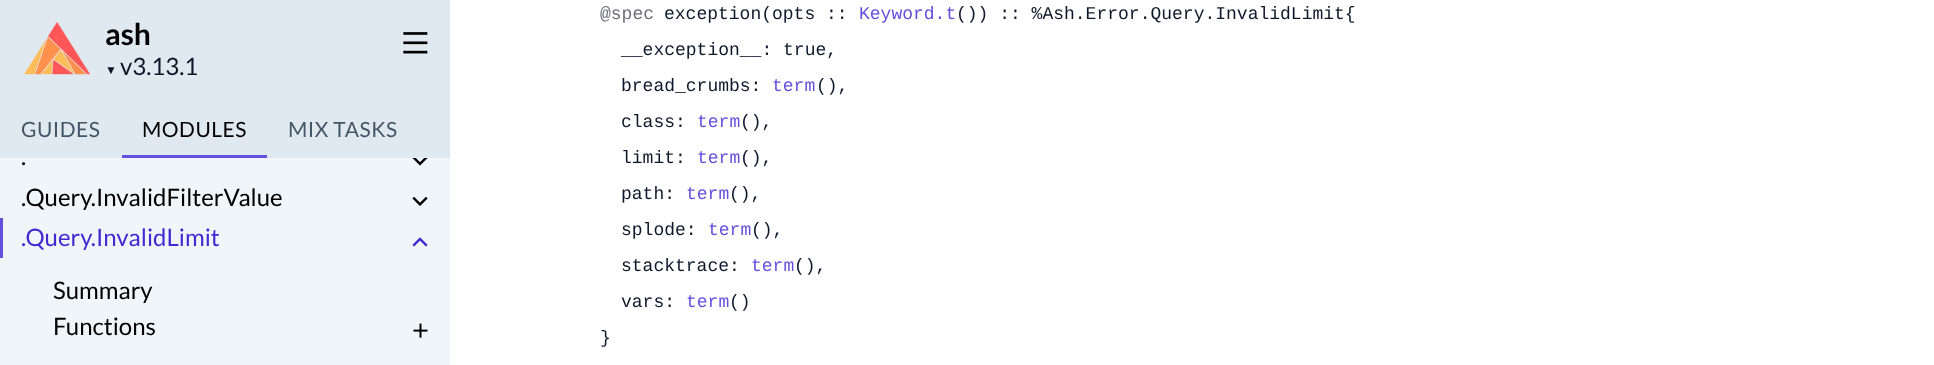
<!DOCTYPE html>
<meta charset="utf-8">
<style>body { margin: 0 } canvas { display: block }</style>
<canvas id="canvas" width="1934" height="365"></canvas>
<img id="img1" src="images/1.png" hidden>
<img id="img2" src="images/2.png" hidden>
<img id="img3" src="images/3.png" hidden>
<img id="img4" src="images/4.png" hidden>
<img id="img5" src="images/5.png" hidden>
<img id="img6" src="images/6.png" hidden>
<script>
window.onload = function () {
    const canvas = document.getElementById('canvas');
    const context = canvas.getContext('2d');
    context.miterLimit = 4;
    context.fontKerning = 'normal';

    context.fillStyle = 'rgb(255, 255, 255)';
    context.fillRect(0, 0, 1934, 365);
    context.fillStyle = 'rgb(240, 245, 249)';
    context.fillRect(0, 158, 450, 207);
    context.fillStyle = 'rgb(224, 232, 240)';
    context.fillRect(0, 0, 450, 158);
    context.drawImage(document.getElementById('img1'), 24, 22, 66, 53);
    context.fillStyle = 'rgb(103, 79, 222)';
    context.fillRect(122, 155, 145, 3);
    context.drawImage(document.getElementById('img2'), 412, 158, 16, 8);
    context.drawImage(document.getElementById('img3'), 412, 196, 16, 10);
    context.fillRect(0, 218, 3, 40);
    context.drawImage(document.getElementById('img4'), 412, 237, 16, 10);
    context.drawImage(document.getElementById('img5'), 413, 323, 15, 15);
    context.drawImage(document.getElementById('img6'), 403, 32, 25, 22);
    context.font = 'bold 30px Lato';
    context.fillStyle = 'rgb(0, 0, 0)';
    context.fillText('ash', 105, 45);
    context.font = '12px Liberation Sans';
    context.fillStyle = 'rgb(13, 25, 43)';
    context.fillText('▼', 105, 74);
    context.font = '24px Lato';
    context.fillText('v3.13.1', 120, 75);
    context.letterSpacing = '0.5px';
    context.font = '21px Lato';
    context.fillStyle = 'rgb(68, 87, 105)';
    context.fillText('GUIDES', 21, 137);
    context.fillStyle = 'rgb(0, 0, 0)';
    context.fillText('MODULES', 142, 137);
    context.fillStyle = 'rgb(68, 87, 105)';
    context.fillText('MIX TASKS', 288, 137);
    context.letterSpacing = '0px';
    context.font = '24px Lato';
    context.fillStyle = 'rgb(0, 0, 0)';
    context.fillText('.', 21, 165);
    context.fillText('.Query.InvalidFilterValue', 21, 206);
    context.fillStyle = 'rgb(68, 40, 210)';
    context.fillText('.Query.InvalidLimit', 21, 246);
    context.fillStyle = 'rgb(0, 0, 0)';
    context.fillText('Summary', 53, 299);
    context.fillText('Functions', 53, 335);
    context.font = '18px Liberation Mono';
    context.fillStyle = 'rgb(111, 111, 123)';
    context.fillText('@spec', 600, 19);
    context.fillStyle = 'rgb(13, 25, 43)';
    context.fillText('exception(opts ::', 664, 19);
    context.fillStyle = 'rgb(103, 79, 222)';
    context.fillText('Keyword.t', 859, 19);
    context.fillStyle = 'rgb(13, 25, 43)';
    context.fillText('()) :: %Ash.Error.Query.InvalidLimit{', 956, 19);
    context.fillText('__exception__: true,', 621, 55);
    context.fillText('bread_crumbs:', 621, 91);
    context.fillStyle = 'rgb(103, 79, 222)';
    context.fillText('term', 772, 91);
    context.fillStyle = 'rgb(13, 25, 43)';
    context.fillText('(),', 816, 91);
    context.fillText('class:', 621, 127);
    context.fillStyle = 'rgb(103, 79, 222)';
    context.fillText('term', 697, 127);
    context.fillStyle = 'rgb(13, 25, 43)';
    context.fillText('(),', 740, 127);
    context.fillText('limit:', 621, 163);
    context.fillStyle = 'rgb(103, 79, 222)';
    context.fillText('term', 697, 163);
    context.fillStyle = 'rgb(13, 25, 43)';
    context.fillText('(),', 740, 163);
    context.fillText('path:', 621, 199);
    context.fillStyle = 'rgb(103, 79, 222)';
    context.fillText('term', 686, 199);
    context.fillStyle = 'rgb(13, 25, 43)';
    context.fillText('(),', 729, 199);
    context.fillText('splode:', 621, 235);
    context.fillStyle = 'rgb(103, 79, 222)';
    context.fillText('term', 708, 235);
    context.fillStyle = 'rgb(13, 25, 43)';
    context.fillText('(),', 751, 235);
    context.fillText('stacktrace:', 621, 271);
    context.fillStyle = 'rgb(103, 79, 222)';
    context.fillText('term', 751, 271);
    context.fillStyle = 'rgb(13, 25, 43)';
    context.fillText('(),', 794, 271);
    context.fillText('vars:', 621, 307);
    context.fillStyle = 'rgb(103, 79, 222)';
    context.fillText('term', 686, 307);
    context.fillStyle = 'rgb(13, 25, 43)';
    context.fillText('()', 729, 307);
    context.fillText('}', 600, 343);
};
</script>
